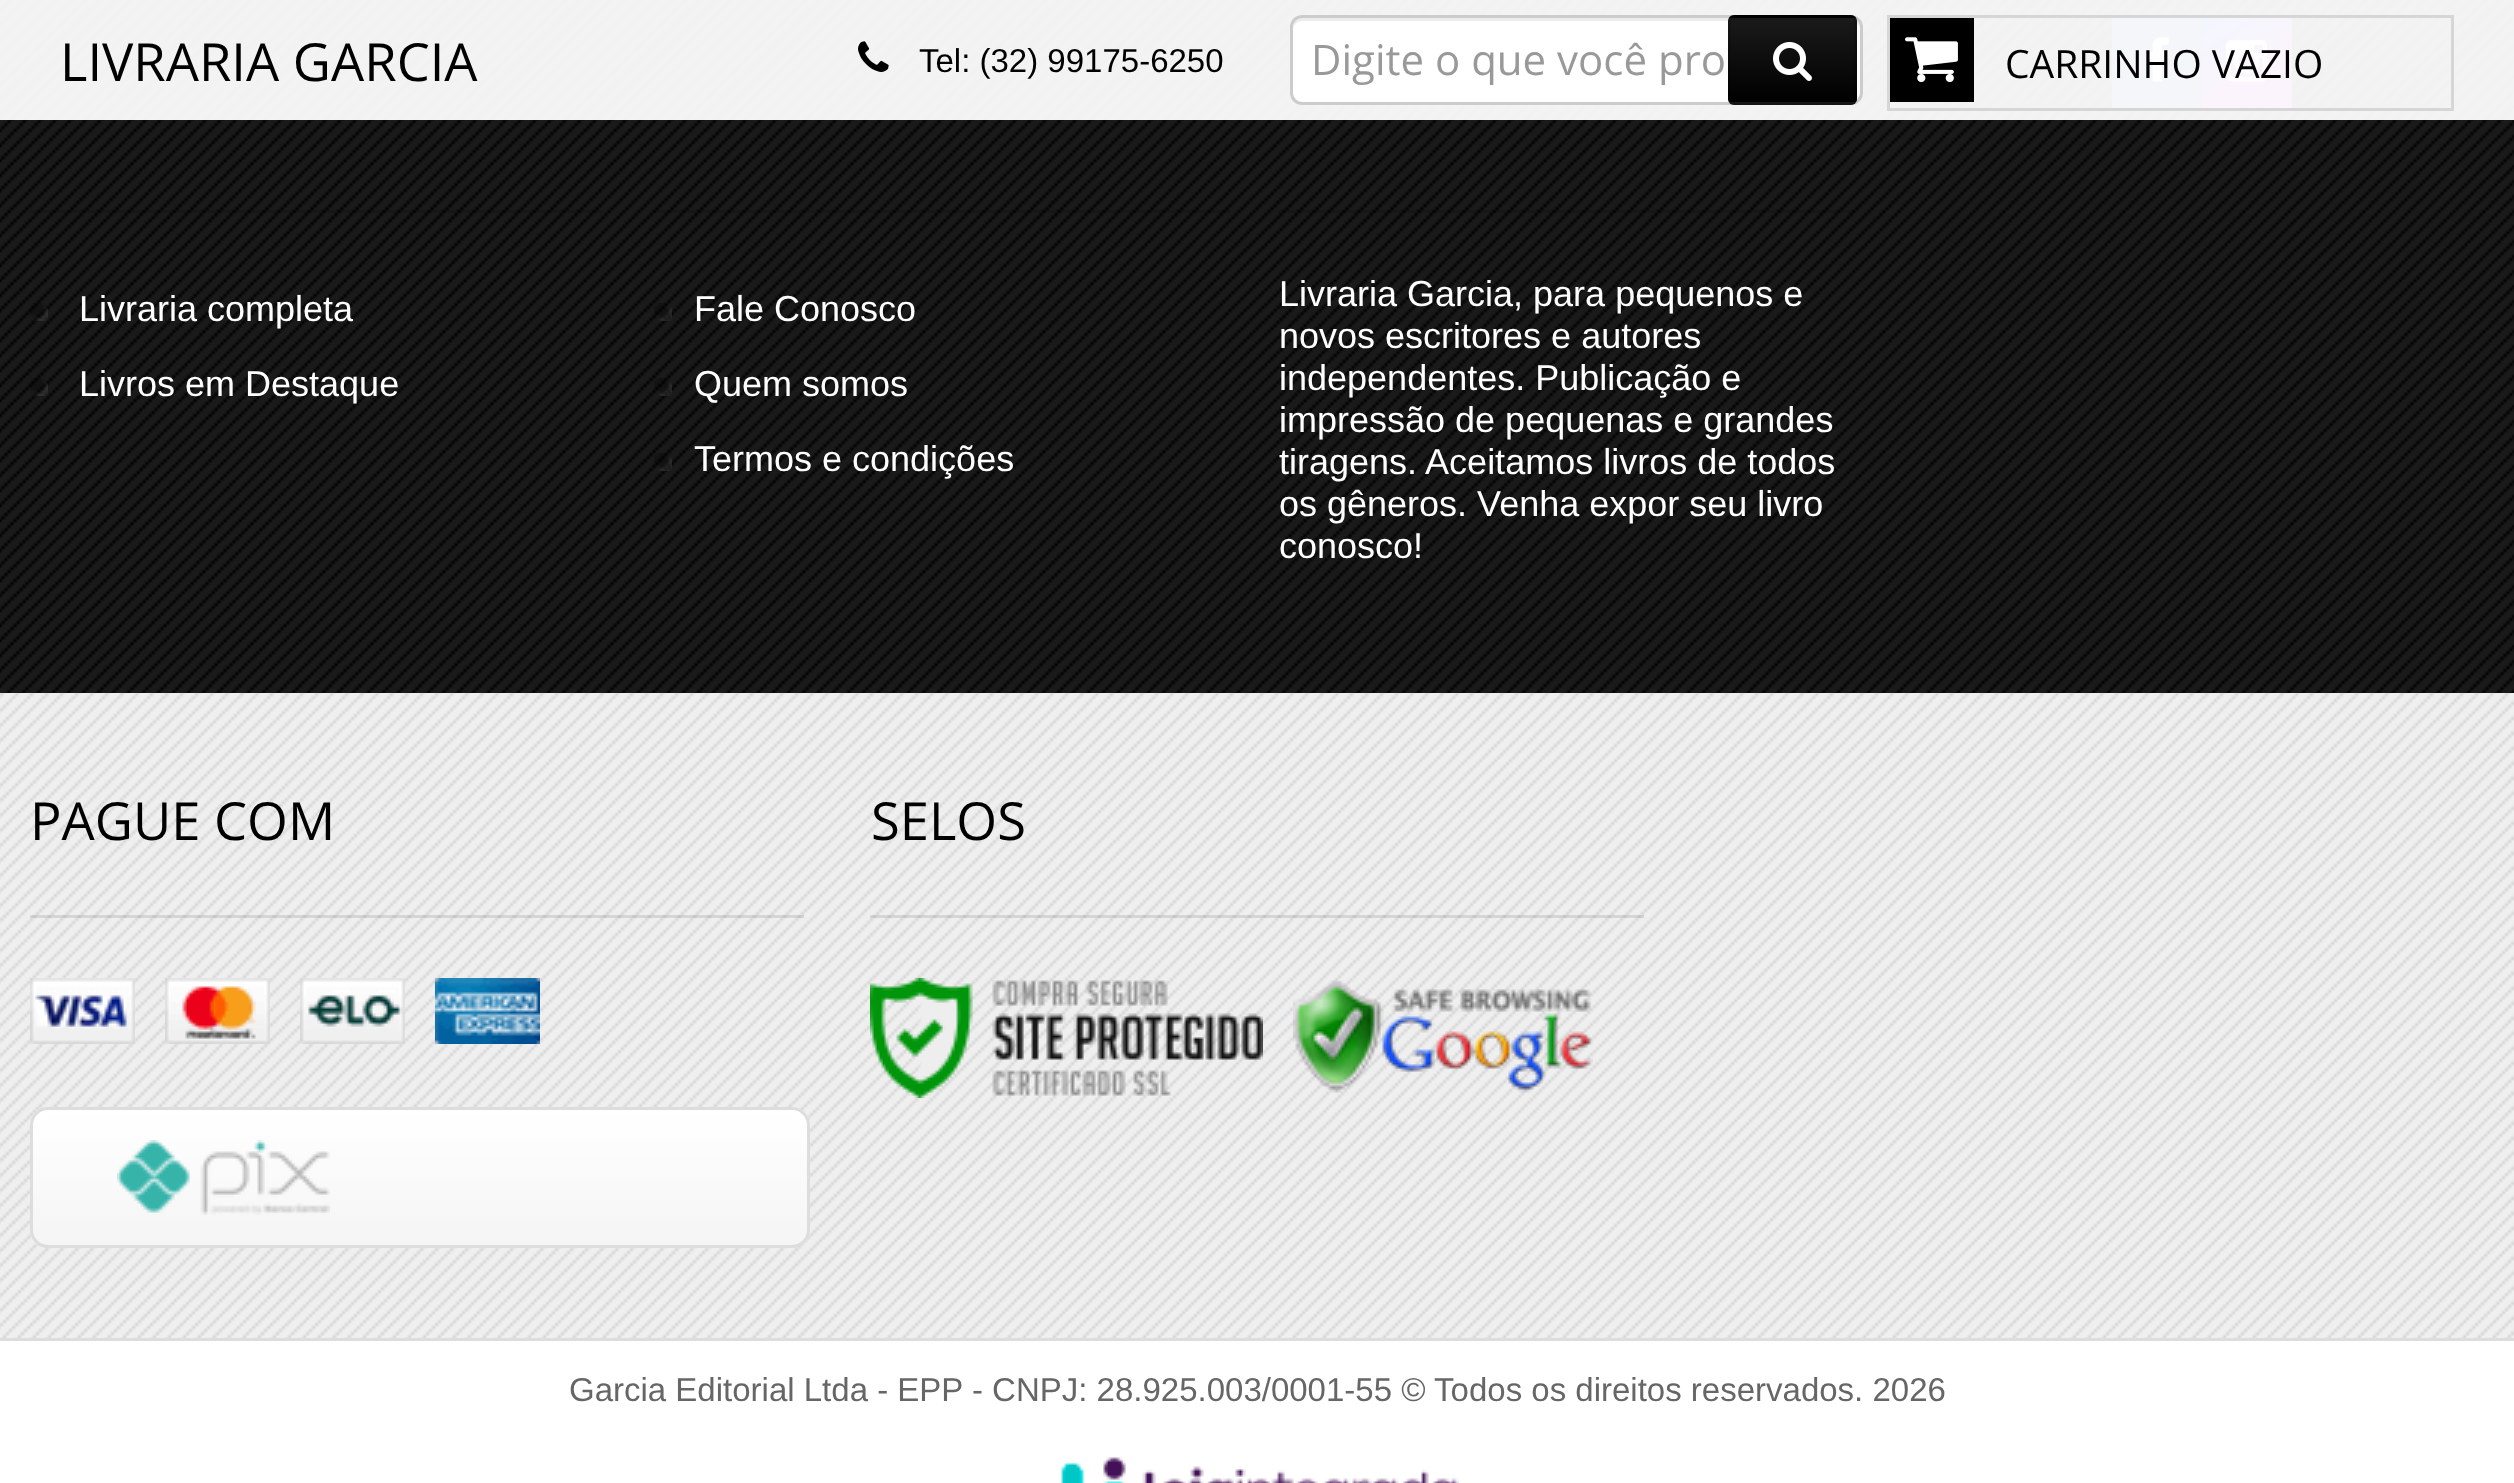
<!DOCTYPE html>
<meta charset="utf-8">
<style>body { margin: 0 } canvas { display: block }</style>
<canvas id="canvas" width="2514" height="1483"></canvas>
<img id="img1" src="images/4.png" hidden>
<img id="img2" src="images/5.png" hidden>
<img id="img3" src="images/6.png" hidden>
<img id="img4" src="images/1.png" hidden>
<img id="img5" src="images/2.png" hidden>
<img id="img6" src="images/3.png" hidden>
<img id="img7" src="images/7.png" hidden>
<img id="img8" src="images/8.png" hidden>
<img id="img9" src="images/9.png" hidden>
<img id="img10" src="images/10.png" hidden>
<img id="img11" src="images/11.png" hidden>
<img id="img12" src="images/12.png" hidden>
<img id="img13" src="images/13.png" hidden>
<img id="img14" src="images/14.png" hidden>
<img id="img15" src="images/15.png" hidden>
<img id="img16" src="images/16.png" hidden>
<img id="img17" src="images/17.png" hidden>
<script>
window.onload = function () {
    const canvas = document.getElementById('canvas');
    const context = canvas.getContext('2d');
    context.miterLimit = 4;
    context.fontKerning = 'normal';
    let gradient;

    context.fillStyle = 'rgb(255, 255, 255)';
    context.fillRect(0, 0, 2514, 1483);
    context.fillStyle = 'rgb(0, 0, 0)';
    context.fillRect(0, 0, 2514, 693);
    context.drawImage(document.getElementById('img1'), 0, 0, 2514, 693);
    context.fillStyle = 'rgb(58, 88, 155)';
    context.fillRect(2112, 18, 90, 90);
    context.drawImage(document.getElementById('img2'), 2148, 37, 21, 45);
    gradient = context.createLinearGradient(2211, 12, 2283, 114);
    gradient.addColorStop(0.1, 'rgb(48, 81, 241)');
    gradient.addColorStop(0.7, 'rgb(201, 43, 183)');
    context.fillStyle = gradient;
    context.fillRect(2202, 18, 90, 90);
    context.drawImage(document.getElementById('img3'), 2226, 40, 42, 42);
    context.fillStyle = 'rgba(255, 255, 255, 0.95)';
    context.fillRect(0, 0, 2514, 120);
    context.drawImage(document.getElementById('img4'), 858, 41, 31, 31);
    context.fillStyle = 'rgb(255, 255, 255)';
    context.beginPath();
    context.roundRect(1290, 15, 573, 90, 12);
    context.fill();
    context.fillStyle = 'rgb(236, 236, 236)';
    context.beginPath();
    context.moveTo(1302, 21);
    context.lineTo(1851, 21);
    context.bezierCurveTo(1856, 21, 1860, 25, 1860, 30);
    context.bezierCurveTo(1860, 24, 1858, 18, 1851, 18);
    context.lineTo(1302, 18);
    context.bezierCurveTo(1295, 18, 1293, 24, 1293, 30);
    context.bezierCurveTo(1293, 25, 1297, 21, 1302, 21);
    context.closePath();
    context.fill();
    context.beginPath();
    context.roundRect(1291.5, 16.5, 570, 87, 10.5);
    context.strokeStyle = 'rgb(204, 204, 204)';
    context.lineWidth = 3;
    context.stroke();
    context.fillStyle = 'rgb(0, 0, 0)';
    context.beginPath();
    context.roundRect(1728, 15, 129, 90, 6);
    context.fill();
    context.save();
    context.beginPath();
    context.roundRect(1728, 15, 129, 90, 6);
    context.clip();
    gradient = context.createLinearGradient(1793, -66, 1793, 18);
    gradient.addColorStop(0, 'rgba(255, 255, 255, 0.1)');
    gradient.addColorStop(1, 'rgba(0, 0, 0, 0.1)');
    context.fillStyle = gradient;
    context.fillRect(1728, 15, 129, 3);
    context.restore();
    gradient = context.createLinearGradient(1793, 18, 1793, 102);
    gradient.addColorStop(0, 'rgba(255, 255, 255, 0.1)');
    gradient.addColorStop(1, 'rgba(0, 0, 0, 0.1)');
    context.fillStyle = gradient;
    context.fillRect(1728, 18, 129, 84);
    context.save();
    context.beginPath();
    context.roundRect(1728, 15, 129, 90, 6);
    context.clip();
    gradient = context.createLinearGradient(1793, 102, 1793, 186);
    gradient.addColorStop(0, 'rgba(255, 255, 255, 0.1)');
    gradient.addColorStop(1, 'rgba(0, 0, 0, 0.1)');
    context.fillStyle = gradient;
    context.fillRect(1728, 102, 129, 3);
    context.restore();
    context.beginPath();
    context.roundRect(1729.5, 16.5, 126, 87, 4.5);
    context.strokeStyle = 'rgba(0, 0, 0, 0.13)';
    context.stroke();
    context.drawImage(document.getElementById('img5'), 1773, 42, 39, 39);
    context.strokeStyle = 'rgb(214, 214, 214)';
    context.strokeRect(1888.5, 16.5, 564, 93);
    context.fillStyle = 'rgb(0, 0, 0)';
    context.fillRect(1890, 18, 84, 84);
    context.drawImage(document.getElementById('img6'), 1905, 37, 53, 46);
    context.fillStyle = 'rgba(0, 0, 0, 0.1)';
    context.fillRect(30, 210, 573, 3);
    context.drawImage(document.getElementById('img7'), 30, 303, 18, 18);
    context.drawImage(document.getElementById('img7'), 30, 378, 18, 18);
    context.fillRect(654, 210, 576, 3);
    context.drawImage(document.getElementById('img8'), 654, 303, 18, 18);
    context.drawImage(document.getElementById('img8'), 654, 378, 18, 18);
    context.drawImage(document.getElementById('img8'), 654, 453, 18, 18);
    context.fillRect(1278, 210, 576, 3);
    context.fillStyle = 'rgb(238, 238, 238)';
    context.fillRect(0, 693, 2514, 645);
    context.drawImage(document.getElementById('img9'), 0, 693, 2514, 645);
    context.fillStyle = 'rgba(0, 0, 0, 0.1)';
    context.fillRect(30, 915, 774, 3);
    context.drawImage(document.getElementById('img10'), 30, 978, 105, 66);
    context.drawImage(document.getElementById('img11'), 165, 978, 105, 66);
    context.drawImage(document.getElementById('img12'), 300, 978, 105, 66);
    context.drawImage(document.getElementById('img13'), 435, 978, 105, 66);
    context.save();
    context.beginPath();
    context.roundRect(30, 1107, 780, 141, 18);
    context.clip();
    gradient = context.createLinearGradient(420, 1110, 420, 1245);
    gradient.addColorStop(0, 'rgb(255, 255, 255)');
    gradient.addColorStop(1, 'rgb(245, 245, 245)');
    context.fillStyle = gradient;
    context.fillRect(30, 1110, 780, 135);
    context.restore();
    context.beginPath();
    context.roundRect(31.5, 1108.5, 777, 138, 16.5);
    context.strokeStyle = 'rgb(221, 221, 221)';
    context.stroke();
    context.drawImage(document.getElementById('img14'), 117, 1140, 213, 75);
    context.fillRect(870, 915, 774, 3);
    context.drawImage(document.getElementById('img15'), 870, 978, 393, 120);
    context.drawImage(document.getElementById('img16'), 1293, 980, 300, 113);
    context.fillStyle = 'rgb(221, 221, 221)';
    context.fillRect(0, 1338, 2514, 3);
    context.drawImage(document.getElementById('img17'), 1061, 1457, 398, 26);
    context.font = '52.5px Open Sans';
    context.fillStyle = 'rgb(0, 0, 0)';
    context.fillText('LIVRARIA GARCIA', 60, 81);
    context.font = '33px Liberation Sans';
    context.fillText('Tel: (32) 99175-6250', 919, 72);
    context.font = '42px Open Sans';
    context.fillStyle = 'rgb(153, 153, 153)';
    context.fillText('Digite o que você pro', 1311, 75);
    context.font = '39px Open Sans';
    context.fillStyle = 'rgb(0, 0, 0)';
    context.fillText('CARRINHO VAZIO', 2005, 78);
    context.font = '36px Liberation Sans';
    context.fillStyle = 'rgb(255, 255, 255)';
    context.fillText('Livraria completa', 79, 321);
    context.fillText('Livros em Destaque', 79, 396);
    context.fillText('Fale Conosco', 694, 321);
    context.fillText('Quem somos', 694, 396);
    context.fillText('Termos e condições', 694, 471);
    context.fillText('Livraria Garcia, para pequenos e', 1279, 306);
    context.fillText('novos escritores e autores', 1279, 348);
    context.fillText('independentes. Publicação e', 1279, 390);
    context.fillText('impressão de pequenas e grandes', 1279, 432);
    context.fillText('tiragens. Aceitamos livros de todos', 1279, 474);
    context.fillText('os gêneros. Venha expor seu livro', 1279, 516);
    context.fillText('conosco!', 1279, 558);
    context.font = '52.5px Open Sans';
    context.fillStyle = 'rgb(0, 0, 0)';
    context.fillText('PAGUE COM', 30, 840);
    context.fillText('SELOS', 871, 840);
    context.font = '33px Liberation Sans';
    context.fillStyle = 'rgb(102, 102, 102)';
    context.fillText('Garcia Editorial Ltda - EPP - CNPJ: 28.925.003/0001-55 © Todos os direitos reservados. 2026', 569, 1401);
};
</script>
